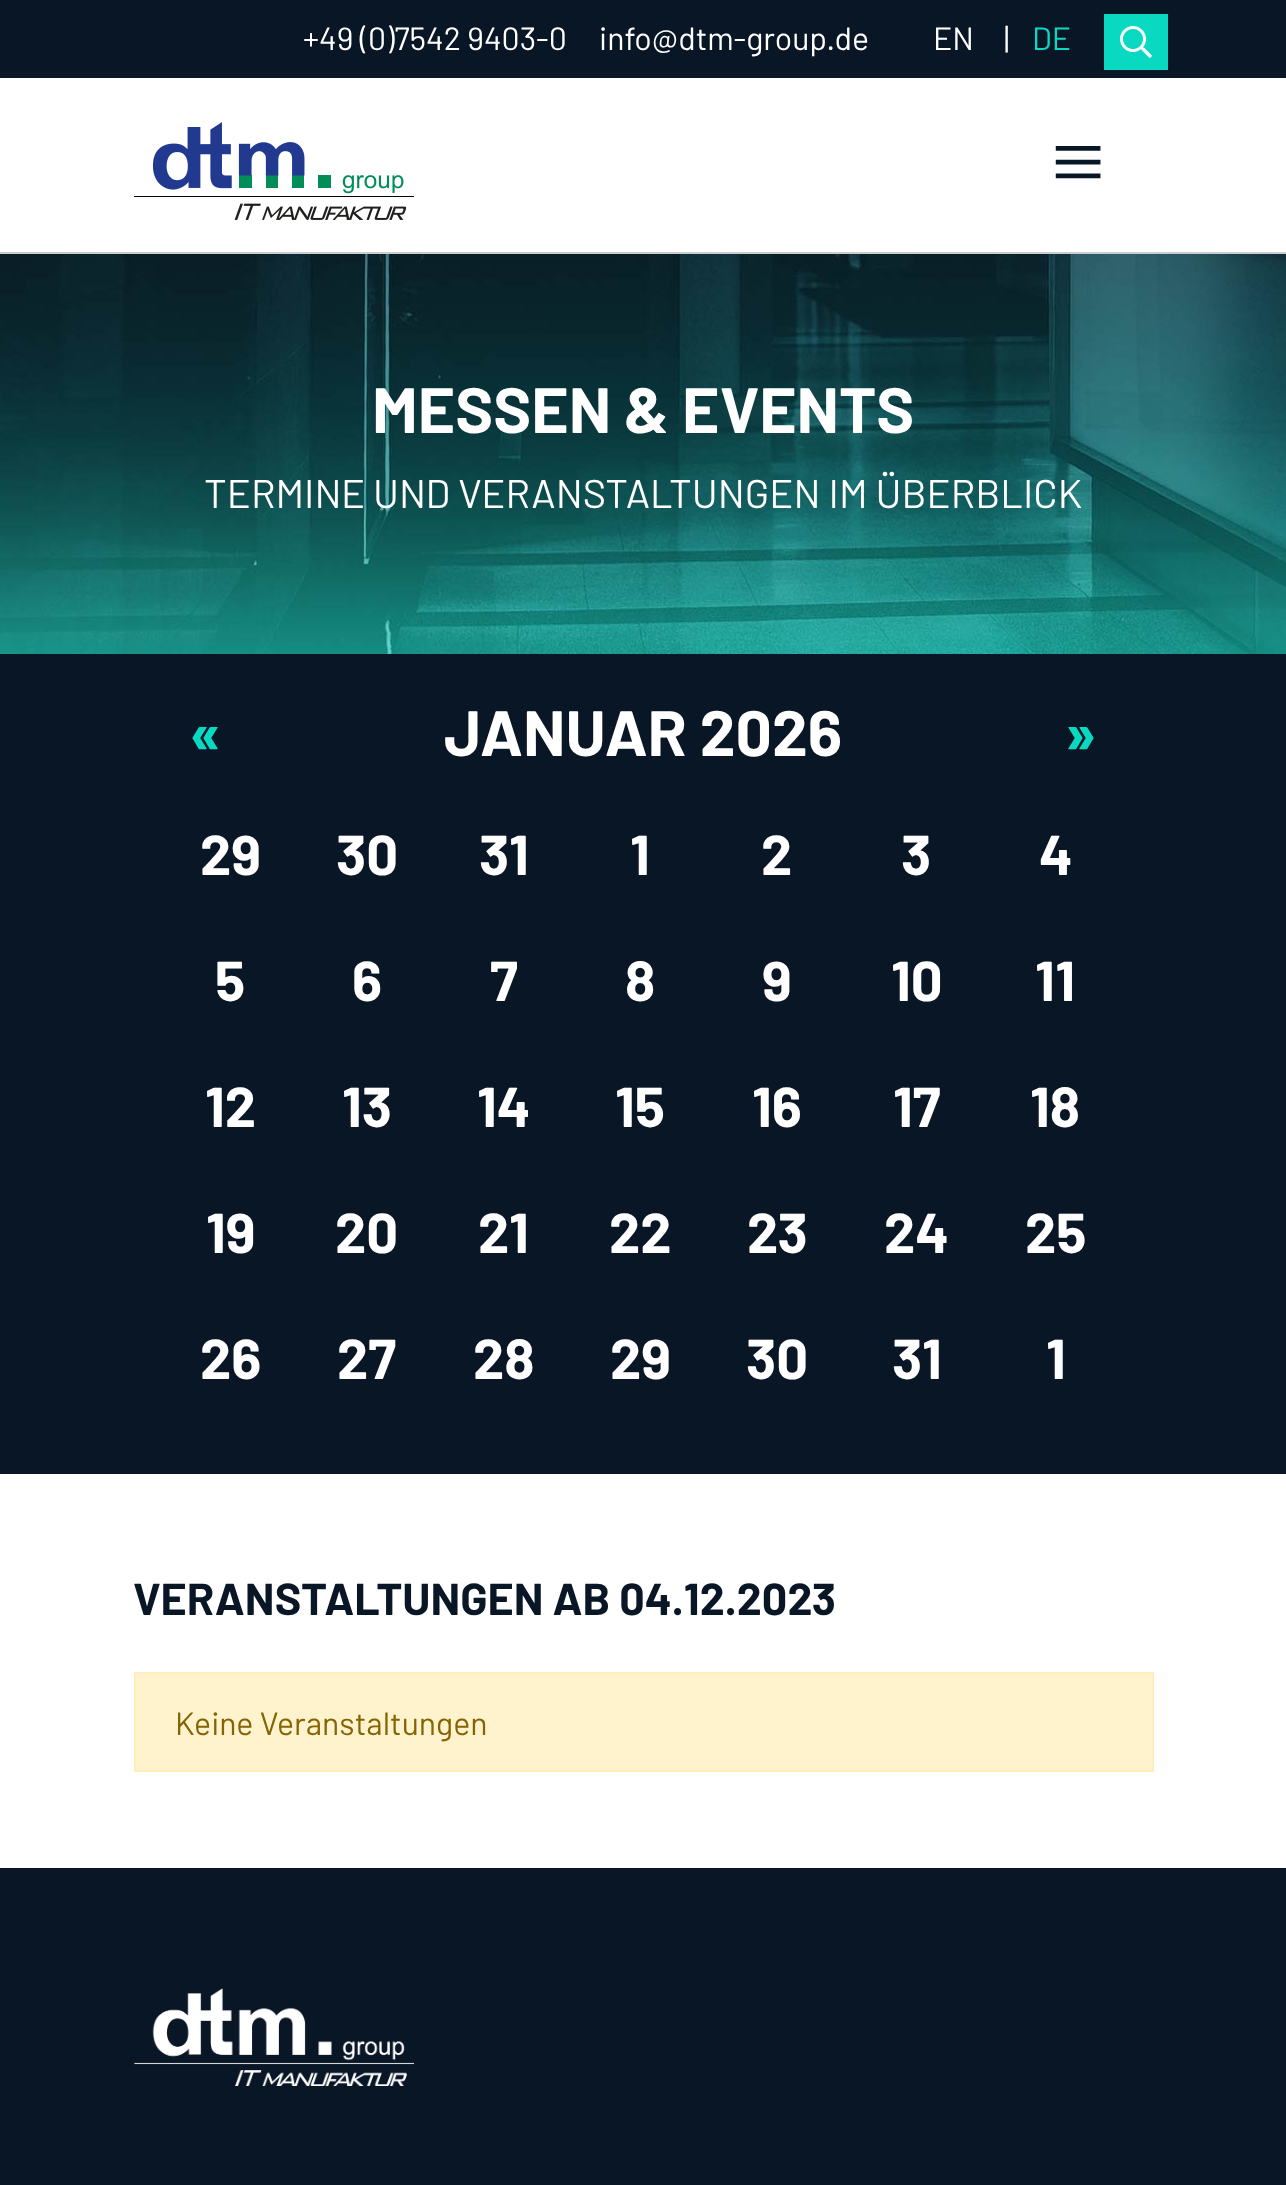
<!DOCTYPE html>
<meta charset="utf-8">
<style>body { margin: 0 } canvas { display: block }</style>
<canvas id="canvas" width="1286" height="2185"></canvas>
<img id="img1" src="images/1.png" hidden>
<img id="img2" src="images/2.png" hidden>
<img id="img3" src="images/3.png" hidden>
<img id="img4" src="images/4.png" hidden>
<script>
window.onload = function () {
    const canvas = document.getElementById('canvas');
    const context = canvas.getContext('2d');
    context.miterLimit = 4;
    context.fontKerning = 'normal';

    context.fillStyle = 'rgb(255, 255, 255)';
    context.fillRect(0, 0, 1286, 2185);
    context.fillStyle = 'rgb(9, 22, 38)';
    context.fillRect(0, 0, 1286, 78);
    context.fillStyle = 'rgb(10, 217, 194)';
    context.fillRect(1104, 14, 64, 56);
    context.drawImage(document.getElementById('img1'), 1120, 26, 32, 32);
    context.fillStyle = 'rgb(204, 204, 204)';
    context.fillRect(0, 252, 1286, 2);
    context.drawImage(document.getElementById('img2'), 134, 122, 280, 98);
    context.drawImage(document.getElementById('img3'), 0, 254, 1286, 400);
    context.fillStyle = 'rgb(9, 22, 38)';
    context.fillRect(0, 654, 1286, 820);
    context.fillStyle = 'rgb(255, 243, 205)';
    context.beginPath();
    context.rect(135, 1673, 1018, 98);
    context.fill();
    context.strokeStyle = 'rgb(255, 238, 186)';
    context.lineWidth = 2;
    context.stroke();
    context.fillStyle = 'rgb(9, 22, 38)';
    context.fillRect(0, 1868, 1286, 317);
    context.drawImage(document.getElementById('img4'), 134, 1988, 280, 98);
    context.font = '32px Barlow';
    context.fillStyle = 'rgb(255, 255, 255)';
    context.fillText('+49 (0)7542 9403-0', 303, 50);
    context.fillText('info@dtm-group.de', 599, 50);
    context.fillText('EN', 933, 50);
    context.fillText('|', 1004, 50);
    context.fillStyle = 'rgb(10, 217, 194)';
    context.fillText('DE', 1032, 50);
    context.font = '96px Liberation Serif';
    context.fillStyle = 'rgb(9, 22, 38)';
    context.fillText('≡', 1051, 194);
    context.font = 'bold 64px Barlow';
    context.fillStyle = 'rgb(255, 255, 255)';
    context.fillText('MESSEN & EVENTS', 372, 433);
    context.font = '40px Barlow';
    context.fillText('TERMINE UND VERANSTALTUNGEN IM ÜBERBLICK', 204, 508);
    context.font = 'bold 64px Barlow';
    context.fillStyle = 'rgb(10, 217, 194)';
    context.fillText('«', 189, 756);
    context.fillStyle = 'rgb(255, 255, 255)';
    context.fillText('JANUAR 2026', 444, 756);
    context.fillStyle = 'rgb(10, 217, 194)';
    context.fillText('»', 1064, 756);
    context.font = 'bold 56px Barlow';
    context.fillStyle = 'rgb(255, 255, 255)';
    context.fillText('29', 200, 875);
    context.fillText('30', 336, 875);
    context.fillText('31', 479, 875);
    context.fillText('1', 630, 875);
    context.fillText('2', 761, 875);
    context.fillText('3', 901, 875);
    context.fillText('4', 1039, 875);
    context.fillText('5', 215, 1001);
    context.fillText('6', 352, 1001);
    context.fillText('7', 490, 1001);
    context.fillText('8', 625, 1001);
    context.fillText('9', 762, 1001);
    context.fillText('10', 891, 1001);
    context.fillText('11', 1035, 1001);
    context.fillText('12', 205, 1127);
    context.fillText('13', 342, 1127);
    context.fillText('14', 477, 1127);
    context.fillText('15', 615, 1127);
    context.fillText('16', 752, 1127);
    context.fillText('17', 893, 1127);
    context.fillText('18', 1030, 1127);
    context.fillText('19', 206, 1253);
    context.fillText('20', 335, 1253);
    context.fillText('21', 478, 1253);
    context.fillText('22', 609, 1253);
    context.fillText('23', 747, 1253);
    context.fillText('24', 884, 1253);
    context.fillText('25', 1025, 1253);
    context.fillText('26', 200, 1379);
    context.fillText('27', 337, 1379);
    context.fillText('28', 473, 1379);
    context.fillText('29', 610, 1379);
    context.fillText('30', 746, 1379);
    context.fillText('31', 892, 1379);
    context.fillText('1', 1046, 1379);
    context.font = 'bold 44.75px Barlow';
    context.fillStyle = 'rgb(9, 22, 38)';
    context.fillText('VERANSTALTUNGEN AB 04.12.2023', 133, 1615);
    context.font = '32px Barlow';
    context.fillStyle = 'rgb(133, 100, 4)';
    context.fillText('Keine Veranstaltungen', 175, 1735);
};
</script>
